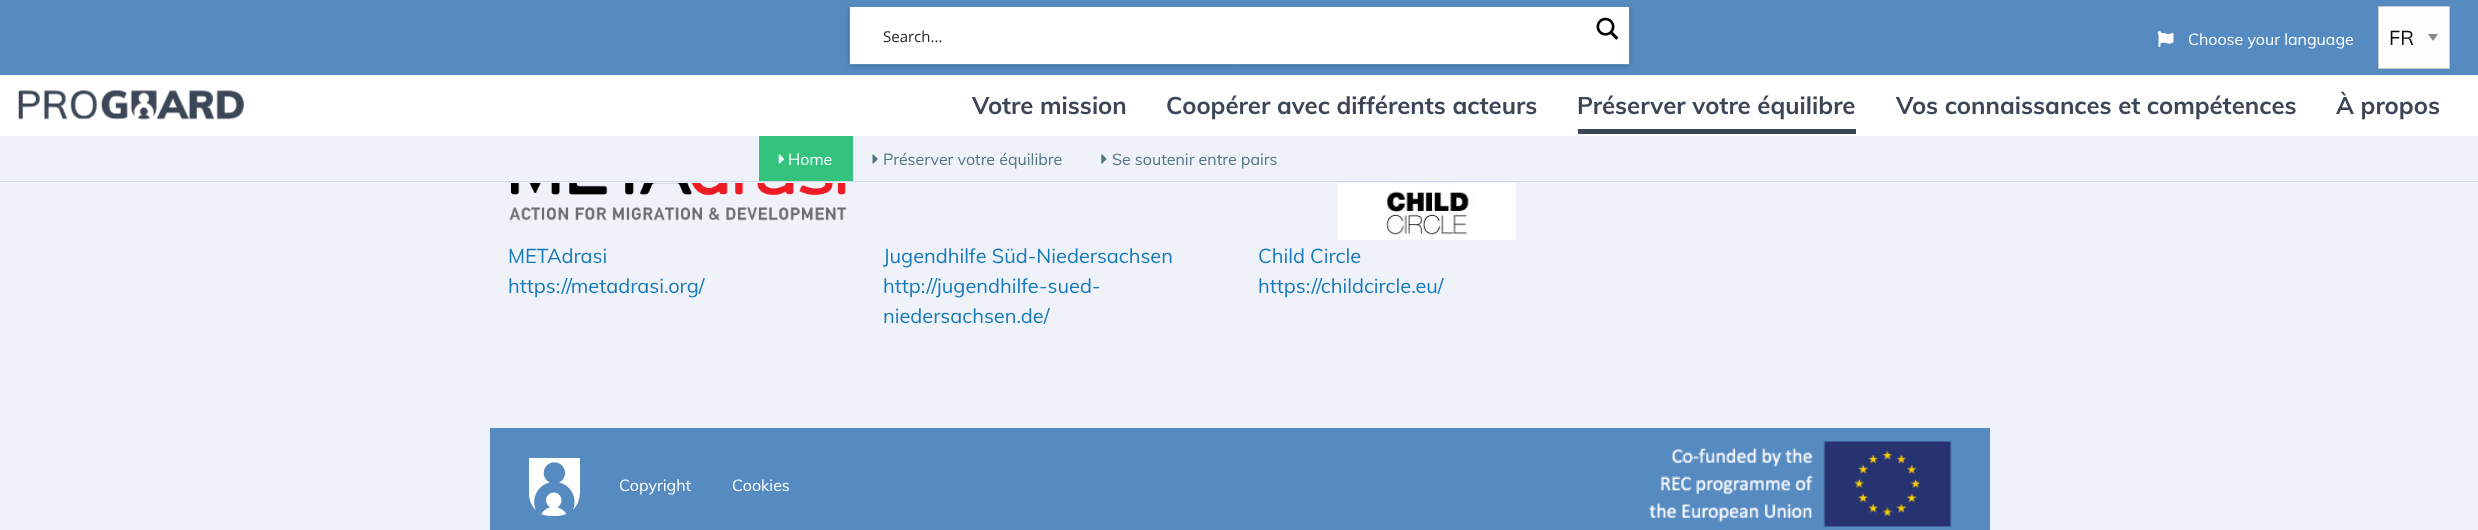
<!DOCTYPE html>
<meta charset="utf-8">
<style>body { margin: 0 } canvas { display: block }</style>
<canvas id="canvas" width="2478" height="530"></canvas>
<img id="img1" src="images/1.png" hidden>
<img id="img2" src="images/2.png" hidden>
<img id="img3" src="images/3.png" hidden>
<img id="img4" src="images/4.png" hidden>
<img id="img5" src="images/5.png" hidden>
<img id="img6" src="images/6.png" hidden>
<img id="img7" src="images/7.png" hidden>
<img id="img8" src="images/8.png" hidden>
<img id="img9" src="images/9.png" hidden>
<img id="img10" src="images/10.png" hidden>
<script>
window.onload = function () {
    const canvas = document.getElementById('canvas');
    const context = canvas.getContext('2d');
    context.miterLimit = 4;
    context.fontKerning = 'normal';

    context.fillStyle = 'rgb(240, 242, 249)';
    context.fillRect(0, 0, 2478, 530);
    context.fillStyle = 'rgb(86, 139, 194)';
    context.fillRect(0, 0, 2478, 75);
    context.fillStyle = 'rgba(0, 0, 0, 0.2)';
    context.filter = 'blur(2.5px)';
    context.beginPath();
    context.rect(849, 8, 781, 58);
    context.fill();
    context.filter = 'none';
    context.fillStyle = 'rgb(255, 255, 255)';
    context.beginPath();
    context.rect(849.5, 6.5, 780, 58);
    context.fill();
    context.strokeStyle = 'rgb(86, 139, 194)';
    context.stroke();
    context.drawImage(document.getElementById('img1'), 1596, 17, 23, 23);
    context.drawImage(document.getElementById('img2'), 2157, 31, 17, 16);
    context.fillStyle = 'rgb(254, 254, 254)';
    context.fillRect(2379, 7, 70, 61);
    context.fillStyle = 'rgb(138, 138, 138)';
    context.beginPath();
    context.moveTo(2428, 34);
    context.lineTo(2438, 34);
    context.lineTo(2433, 41);
    context.closePath();
    context.fill();
    context.strokeStyle = 'rgb(202, 202, 202)';
    context.strokeRect(2378.5, 6.5, 71, 62);
    context.fillStyle = 'rgb(255, 255, 255)';
    context.fillRect(0, 75, 2478, 61);
    context.drawImage(document.getElementById('img3'), 18, 90, 226, 30);
    context.fillStyle = 'rgb(61, 70, 86)';
    context.fillRect(1578, 129, 278, 5);
    context.fillStyle = 'rgb(202, 216, 235)';
    context.fillRect(0, 181, 2478, 1);
    context.fillStyle = 'rgb(51, 195, 125)';
    context.fillRect(759, 136, 94, 45);
    context.drawImage(document.getElementById('img4'), 778, 154, 6, 10);
    context.drawImage(document.getElementById('img5'), 872, 154, 6, 10);
    context.drawImage(document.getElementById('img6'), 1101, 154, 6, 10);
    context.drawImage(document.getElementById('img7'), 509, 183, 338, 38);
    context.drawImage(document.getElementById('img8'), 1337, 183, 179, 57);
    context.fillStyle = 'rgb(86, 139, 194)';
    context.fillRect(490, 428, 1500, 102);
    context.drawImage(document.getElementById('img9'), 529, 458, 51, 58);
    context.drawImage(document.getElementById('img10'), 1648, 441, 304, 86);
    context.font = '15px Open Sans';
    context.fillStyle = 'rgb(38, 38, 38)';
    context.fillText('Search...', 883, 42);
    context.font = '16px Muli';
    context.fillStyle = 'rgb(255, 255, 255)';
    context.fillText('Choose your language', 2188, 45);
    context.font = '20px Muli';
    context.fillStyle = 'rgb(10, 10, 10)';
    context.fillText('FR', 2389, 45);
    context.font = 'bold 24px Muli';
    context.fillStyle = 'rgb(61, 70, 86)';
    context.fillText('Votre mission', 972, 114);
    context.fillText('Coopérer avec différents acteurs', 1166, 114);
    context.fillText('Préserver votre équilibre', 1577, 114);
    context.fillText('Vos connaissances et compétences', 1896, 114);
    context.fillText('À propos', 2336, 114);
    context.font = '16px Muli';
    context.fillStyle = 'rgb(255, 255, 255)';
    context.fillText('Home', 788, 165);
    context.fillStyle = 'rgb(84, 118, 131)';
    context.fillText('Préserver votre équilibre', 883, 165);
    context.fillText('Se soutenir entre pairs', 1112, 165);
    context.font = '20px Muli';
    context.fillStyle = 'rgb(23, 121, 186)';
    context.fillText('METAdrasi', 508, 263);
    context.fillText('https://metadrasi.org/', 508, 293);
    context.fillText('Jugendhilfe Süd-Niedersachsen', 883, 263);
    context.fillText('http://jugendhilfe-sued-', 883, 293);
    context.fillText('niedersachsen.de/', 883, 323);
    context.fillText('Child Circle', 1258, 263);
    context.fillText('https://childcircle.eu/', 1258, 293);
    context.font = '16px Muli';
    context.fillStyle = 'rgb(255, 255, 255)';
    context.fillText('Copyright', 619, 491);
    context.fillText('Cookies', 732, 491);
};
</script>
